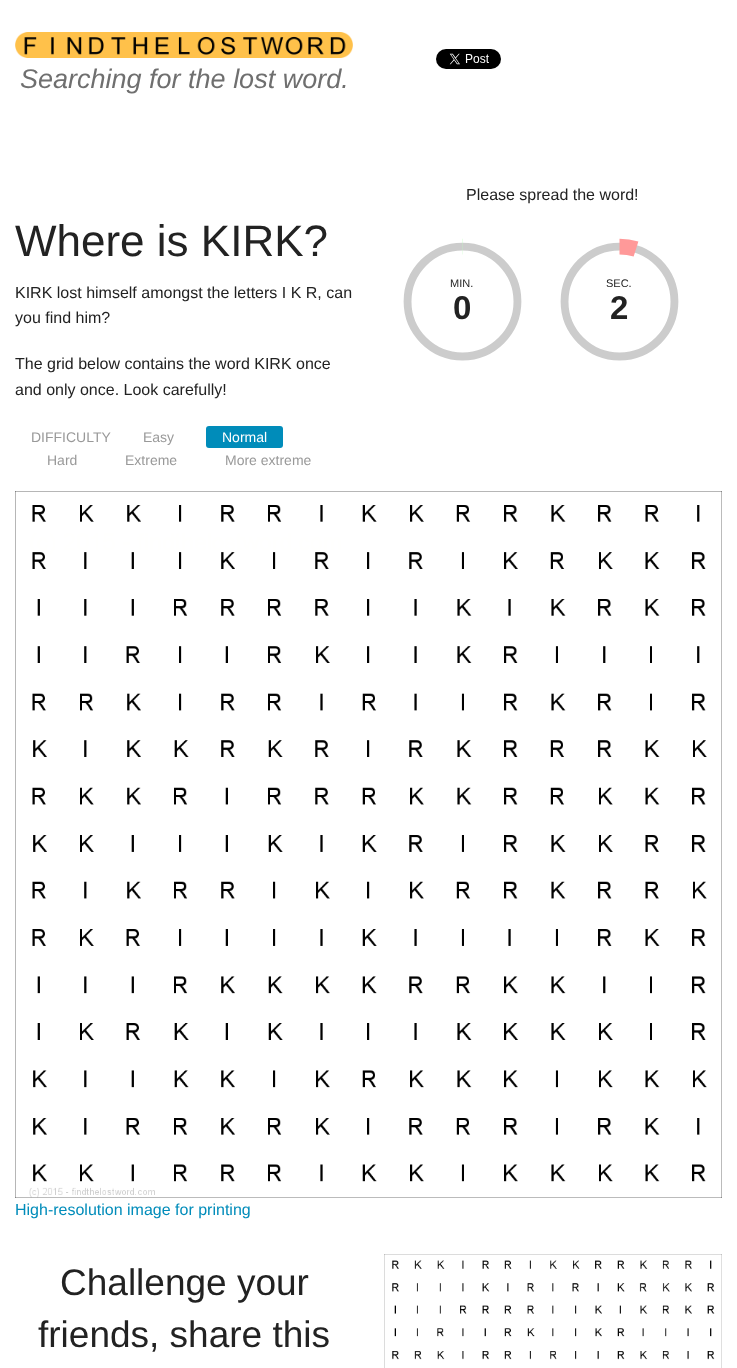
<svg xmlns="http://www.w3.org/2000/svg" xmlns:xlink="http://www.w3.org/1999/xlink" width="737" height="1368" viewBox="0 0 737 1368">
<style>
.cls-1{font:italic 27px Liberation Sans;fill:#6f6f6f}
.cls-2{font:16px Liberation Sans;fill:#222222}
.cls-3{font:44px Liberation Sans;fill:#222222}
.cls-4{font:14px Liberation Sans;fill:#999999}
.cls-5{font:14px Liberation Sans;fill:#ffffff}
.cls-6{font:11px Liberation Sans;fill:#222222}
.cls-7{font:bold 33px Liberation Sans;fill:#222222}
.cls-8{font:16px Liberation Sans;fill:#008cba}
.cls-9{font:37px Liberation Sans;fill:#222222}
</style>
<rect width="100%" height="100%" fill="#ffffff"/>
<image xlink:href="image0.png" x="15" y="32" width="338" height="26"/>
<image xlink:href="image1.png" x="436" y="49" width="65" height="20"/>
<rect fill="#008cba" x="206" y="426" width="77" height="22" rx="3"/>
<image xlink:href="image2.png" x="403" y="238" width="276" height="123"/>
<image xlink:href="image3.png" x="15" y="491" width="707" height="707"/>
<image xlink:href="image4.png" x="384" y="1254" width="338" height="114"/>
<text class="cls-1" x="20" y="88">Searching for the lost word.</text>
<text class="cls-2" x="466" y="200">Please spread the word!</text>
<text class="cls-3" x="15" y="256">Where is KIRK?</text>
<text class="cls-2"><tspan x="15" y="298">KIRK lost himself amongst the letters I K R, can</tspan><tspan x="15" y="323">you find him?</tspan></text>
<text class="cls-2"><tspan x="15" y="369">The grid below contains the word KIRK once</tspan><tspan x="15" y="395">and only once. Look carefully!</tspan></text>
<text class="cls-4" x="31" y="442">DIFFICULTY</text>
<text class="cls-4" x="143" y="442">Easy</text>
<text class="cls-5" x="222" y="442">Normal</text>
<text class="cls-4" x="47" y="465">Hard</text>
<text class="cls-4" x="125" y="465">Extreme</text>
<text class="cls-4" x="225" y="465">More extreme</text>
<text class="cls-6" x="450" y="287">MIN.</text>
<text class="cls-7" x="453" y="319">0</text>
<text class="cls-6" x="606" y="287">SEC.</text>
<text class="cls-7" x="610" y="319">2</text>
<text class="cls-8" x="15" y="1215">High-resolution image for printing</text>
<text class="cls-9" x="60" y="1295">Challenge your</text>
<text class="cls-9" x="38" y="1347">friends, share this</text>
</svg>
